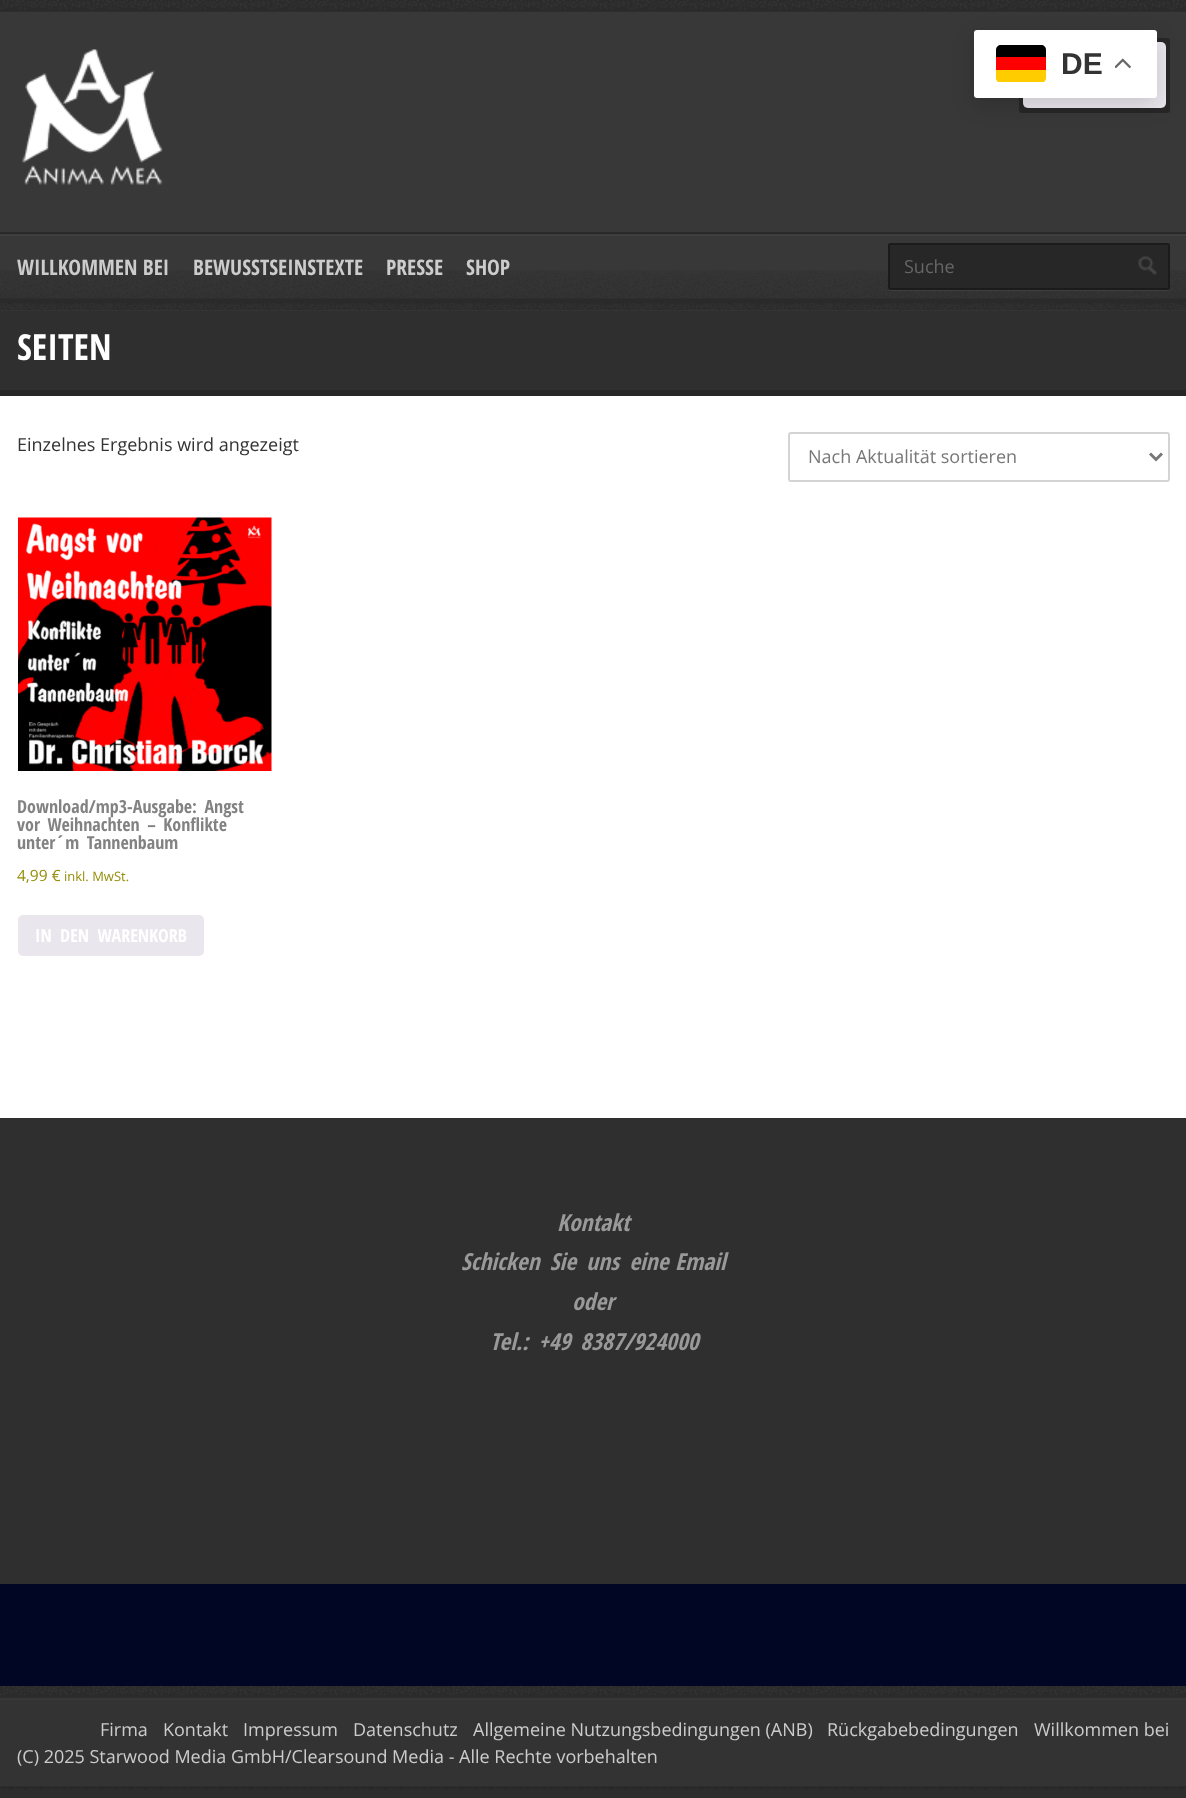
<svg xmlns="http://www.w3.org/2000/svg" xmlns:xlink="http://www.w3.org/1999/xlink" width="1186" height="1798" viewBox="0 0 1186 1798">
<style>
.cls-1{font:bold 30px Liberation Sans;fill:#333333}
.cls-2{font:bold 21.5px Open Sans Condensed;fill:#cccccc}
.cls-3{font:18px Open Sans;fill:#666666}
.cls-4{font:bold 36px Open Sans Condensed;fill:#ffffff}
.cls-5{font:18px Open Sans;fill:#333333}
.cls-6{font:18px Open Sans;fill:#777777}
.cls-7{font:bold 18px Open Sans Condensed;fill:#828282}
.cls-8{font:15.5px Open Sans;fill:#958e09}
.cls-9{font:13px Open Sans;fill:#958e09}
.cls-10{font:bold 18px Open Sans Condensed;fill:#ffffff}
.cls-11{font:italic bold 23.5px Open Sans Condensed;fill:#999999}
.cls-12{font:18px Open Sans;fill:#cccccc}
</style>
<defs>
<clipPath id="clip1"><rect x="996" y="45" width="50" height="38" rx="5"/></clipPath>
<clipPath id="clip2"><rect x="905" y="252" width="225" height="29"/></clipPath>
</defs>
<rect width="100%" height="100%" fill="#020625"/>
<rect fill="#383838" x="0" y="12" width="1186" height="299"/>
<image xlink:href="image2.png" x="0" y="0" width="1186" height="12"/>
<path fill="#3f3f3f" d="M1020 112C1020 113 1021 113 1022 113H1167C1169 113 1170 112 1170 110C1170 111 1169 112 1167 112H1022Z"/>
<rect fill="none" stroke="#272727" stroke-width="5" x="1021.5" y="40.5" width="146" height="70" rx="0.5"/>
<rect fill="#e9e6ed" x="1023" y="42" width="143" height="66" rx="5"/>
<rect fill="#000000" fill-opacity="0.15" filter="blur(11px)" x="974" y="38" width="183" height="67" rx="3"/>
<rect fill="#ffffff" x="974" y="30" width="183" height="68" rx="3"/>
<g clip-path="url(#clip1)">
<rect fill="#ffcc00" x="996" y="70" width="50" height="12"/>
</g>
<path fill="#000000" d="M1001 45H1041C1044 45 1046 47 1046 50V57H996V50C996 47 998 45 1001 45Z"/>
<rect fill="#ff0000" x="996" y="57" width="50" height="13"/>
<image xlink:href="image0.png" x="1115" y="58" width="16" height="11"/>
<image xlink:href="image1.png" x="0" y="270" width="1186" height="41"/>
<image xlink:href="image3.png" x="22" y="49" width="141" height="136"/>
<image xlink:href="image4.png" x="0" y="232" width="1186" height="4"/>
<path fill="#3f3f3f" d="M888 286V288C888 290 889 291 891 291H1167C1169 291 1170 290 1170 288V286C1170 288 1169 290 1167 290H891C889 290 888 288 888 286Z"/>
<rect fill="#272727" x="888" y="243" width="282" height="47" rx="3"/>
<image xlink:href="image5.png" x="1138" y="256" width="19" height="19"/>
<rect fill="none" stroke="#1b1b1b" stroke-width="2" x="889" y="244" width="280" height="45" rx="2"/>
<rect fill="#2f2f2f" x="0" y="311" width="1186" height="79"/>
<rect fill="#272727" x="0" y="390" width="1186" height="6"/>
<rect fill="#ffffff" x="0" y="396" width="1186" height="722"/>
<rect fill="none" stroke="#d4d4d4" stroke-width="2" x="789" y="433" width="380" height="48" rx="2"/>
<path fill="none" stroke="#777777" stroke-width="3" d="M1150 453.5L1156 459.5L1162 453.5"/>
<image xlink:href="image6.png" x="18" y="517" width="254" height="254"/>
<rect fill="#e9e6ed" x="18" y="915" width="186" height="41" rx="5"/>
<rect fill="#2f2f2f" x="0" y="1118" width="1186" height="466"/>
<image xlink:href="image7.png" x="0" y="1686" width="1186" height="14"/>
<rect fill="#333333" x="0" y="1700" width="1186" height="87"/>
<image xlink:href="image8.png" x="0" y="1786" width="1186" height="12"/>
<text class="cls-1" x="1061" y="74">DE</text>
<text class="cls-2" x="17" y="275">WILLKOMMEN BEI</text>
<text class="cls-2" x="193" y="275">BEWUSSTSEINSTEXTE</text>
<text class="cls-2" x="386" y="275">PRESSE</text>
<text class="cls-2" x="466" y="275">SHOP</text>
<g clip-path="url(#clip2)">
<text class="cls-3" x="904" y="273">Suche</text>
</g>
<text class="cls-4" x="17" y="360">SEITEN</text>
<text class="cls-5" x="17" y="451">Einzelnes Ergebnis wird angezeigt</text>
<text class="cls-6" x="808" y="463">Nach Aktualität sortieren</text>
<text class="cls-7"><tspan x="17" y="813" word-spacing="3">Download/mp3-Ausgabe: Angst</tspan><tspan x="17" y="831" word-spacing="3">vor Weihnachten – Konflikte</tspan><tspan x="17" y="849" word-spacing="3">unter´m Tannenbaum</tspan></text>
<text class="cls-8" x="17" y="881">4,99 €</text>
<text class="cls-9" x="64" y="881">inkl. MwSt.</text>
<text class="cls-10" x="35" y="942" word-spacing="4">IN DEN WARENKORB</text>
<text class="cls-11" x="557" y="1231">Kontakt</text>
<text class="cls-11" x="461" y="1270" word-spacing="4.5">Schicken Sie uns eine</text>
<text class="cls-11" x="675" y="1270">Email</text>
<text class="cls-11" x="572" y="1310">oder</text>
<text class="cls-11" x="490" y="1350" word-spacing="4">Tel.: +49 8387/924000</text>
<text class="cls-12" x="100" y="1736">Firma</text>
<text class="cls-12" x="163" y="1736">Kontakt</text>
<text class="cls-12" x="243" y="1736">Impressum</text>
<text class="cls-12" x="353" y="1736">Datenschutz</text>
<text class="cls-12" x="473" y="1736">Allgemeine Nutzungsbedingungen (ANB)</text>
<text class="cls-12" x="827" y="1736">Rückgabebedingungen</text>
<text class="cls-12" x="1034" y="1736">Willkommen bei</text>
<text class="cls-12" x="17" y="1763">(C) 2025 Starwood Media GmbH/Clearsound Media - Alle Rechte vorbehalten</text>
</svg>
